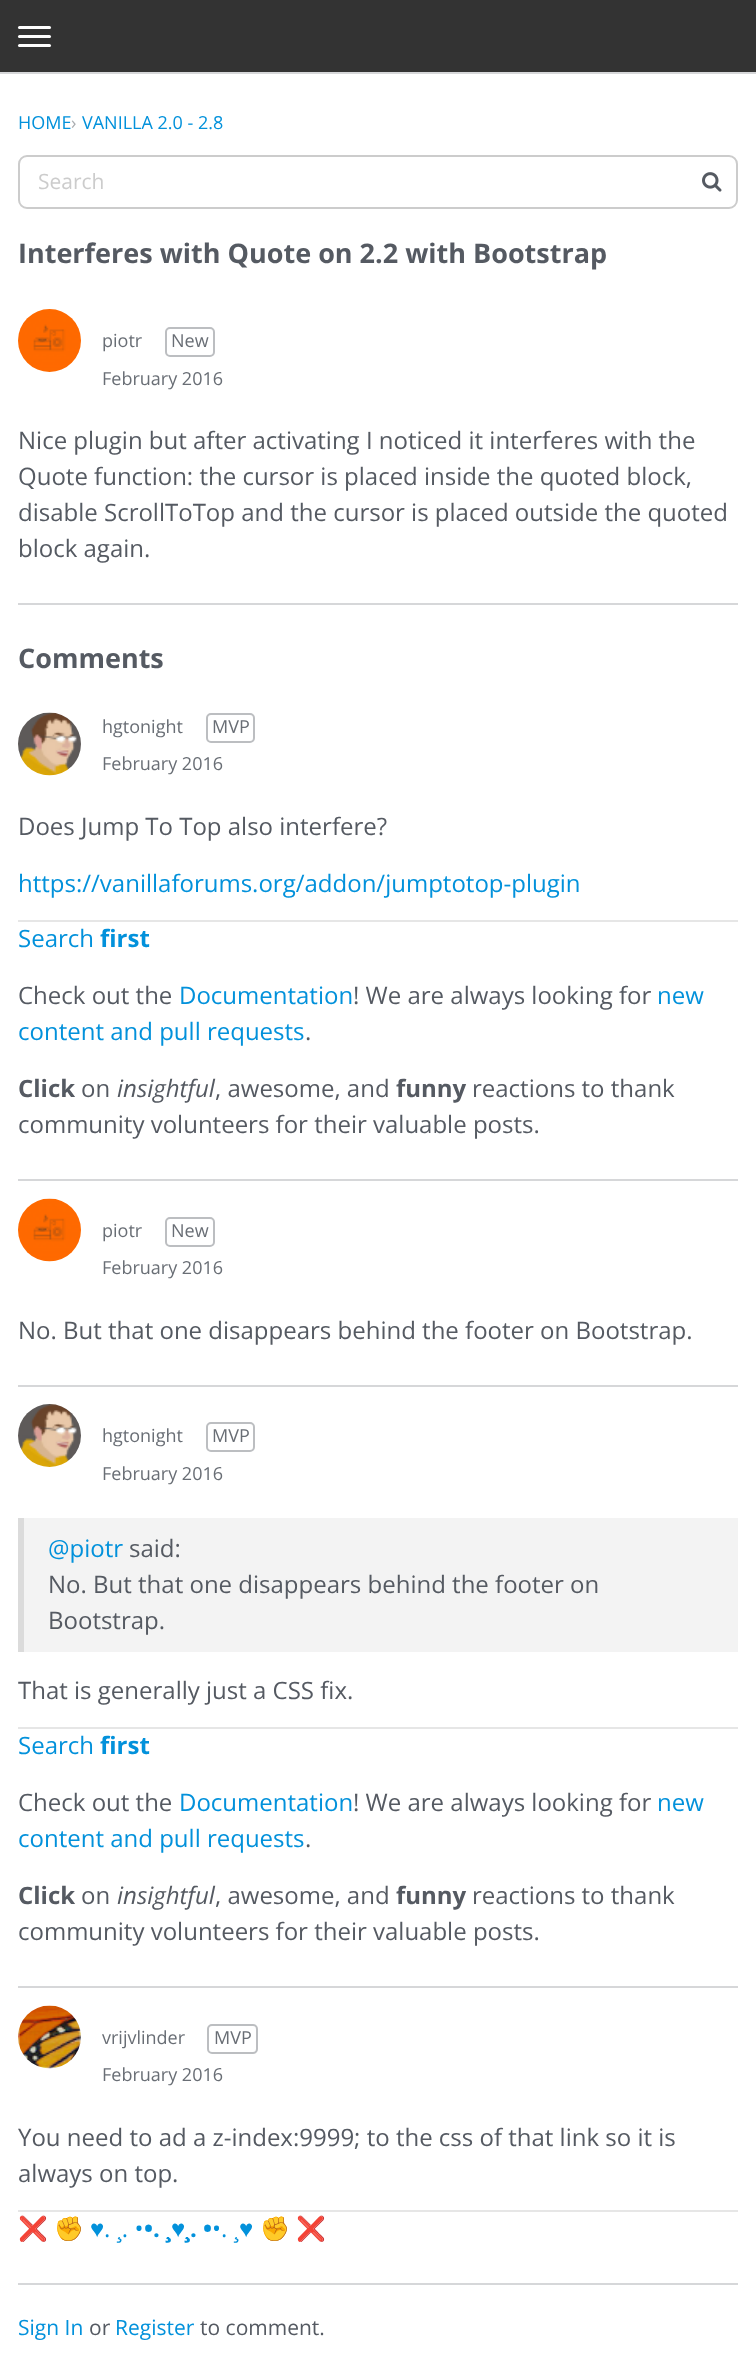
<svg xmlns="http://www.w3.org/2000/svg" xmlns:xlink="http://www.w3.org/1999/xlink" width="756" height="2365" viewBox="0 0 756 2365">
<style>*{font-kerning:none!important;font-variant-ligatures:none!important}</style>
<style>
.cls-1{font:18px Open Sans;fill:#0291db}
.cls-2{font:18px Open Sans;fill:#aaadb1}
.cls-3{font:21px Open Sans;fill:#cccccc}
.cls-4{font:bold 27px Open Sans;fill:#555a62}
.cls-5{font:18px Open Sans;fill:#696e75}
.cls-6{font:24px Open Sans;fill:#555a62}
.cls-7{font:24px Open Sans;fill:#0291db}
.cls-8{font:bold 24px Open Sans;fill:#0291db}
.cls-9{font:bold 24px Open Sans;fill:#555a62}
.cls-10{font:italic 24px Open Sans;fill:#555a62}
.cls-11{font:24px Noto Color Emoji;fill:#0291db}
.cls-12{font:24px Liberation Sans;fill:#0291db}
.cls-13{font:bold 24px Liberation Sans;fill:#0291db}
.cls-14{font:21px Open Sans;fill:#0291db}
.cls-15{font:21px Open Sans;fill:#555a62}
</style>
<rect width="100%" height="100%" fill="#ffffff"/>
<rect fill="#333333" x="0" y="0" width="756" height="72"/>
<rect fill="#d6d7d9" x="0" y="72" width="756" height="2"/>
<rect fill="#ffffff" x="18" y="35" width="33" height="3" rx="1.5"/>
<rect fill="#ffffff" x="18" y="26" width="33" height="3" rx="1.5"/>
<rect fill="#ffffff" x="18" y="44" width="33" height="3" rx="1.5"/>
<rect fill="none" stroke="#cccccc" stroke-width="2" x="19" y="156" width="718" height="52" rx="8"/>
<image xlink:href="image0.png" x="702" y="172" width="20" height="20"/>
<rect fill="#d6d7d9" x="18" y="603" width="720" height="2"/>
<image xlink:href="image1.png" x="18" y="309" width="63" height="63"/>
<rect fill="none" stroke="#bcbec1" stroke-width="2" x="166" y="328" width="48" height="28" rx="4"/>
<image xlink:href="image2.png" x="18" y="712" width="63" height="64"/>
<rect fill="none" stroke="#bcbec1" stroke-width="2" x="207" y="714" width="47" height="28" rx="4"/>
<rect fill="#e6e6e6" x="18" y="920" width="720" height="2"/>
<rect fill="#d6d7d9" x="18" y="1179" width="720" height="2"/>
<image xlink:href="image3.png" x="18" y="1198" width="63" height="64"/>
<rect fill="none" stroke="#bcbec1" stroke-width="2" x="166" y="1218" width="48" height="28" rx="4"/>
<rect fill="#d6d7d9" x="18" y="1385" width="720" height="2"/>
<image xlink:href="image4.png" x="18" y="1404" width="63" height="63"/>
<rect fill="none" stroke="#bcbec1" stroke-width="2" x="207" y="1423" width="47" height="28" rx="4"/>
<rect fill="#f3f3f3" x="24" y="1518" width="714" height="134"/>
<rect fill="#dbdbdb" x="18" y="1518" width="6" height="134"/>
<rect fill="#e6e6e6" x="18" y="1727" width="720" height="2"/>
<rect fill="#d6d7d9" x="18" y="1986" width="720" height="2"/>
<rect fill="#d6d7d9" x="18" y="2283" width="720" height="2"/>
<image xlink:href="image5.png" x="18" y="2005" width="63" height="64"/>
<rect fill="none" stroke="#bcbec1" stroke-width="2" x="208" y="2025" width="49" height="28" rx="4"/>
<rect fill="#e6e6e6" x="18" y="2210" width="720" height="2"/>
<text class="cls-1" x="18" y="129">HOME</text>
<text class="cls-2" x="71" y="129">›</text>
<text class="cls-1" x="82" y="129">VANILLA 2.0 - 2.8</text>
<text class="cls-3" x="38" y="189">Search</text>
<text class="cls-4" x="18" y="263">Interferes with Quote on 2.2 with Bootstrap</text>
<text class="cls-5" x="102" y="347">piotr</text>
<text class="cls-5" x="171" y="347">New</text>
<text class="cls-5" x="102" y="385">February 2016</text>
<text class="cls-6"><tspan x="18" y="449">Nice plugin but after activating I noticed it interferes with the</tspan><tspan x="18" y="485">Quote function: the cursor is placed inside the quoted block,</tspan><tspan x="18" y="521">disable ScrollToTop and the cursor is placed outside the quoted</tspan><tspan x="18" y="557">block again.</tspan></text>
<text class="cls-4" x="18" y="668">Comments</text>
<text class="cls-5" x="102" y="733">hgtonight</text>
<text class="cls-5" x="212" y="733">MVP</text>
<text class="cls-5" x="102" y="770">February 2016</text>
<text class="cls-6" x="18" y="835">Does Jump To Top also interfere?</text>
<text class="cls-7" x="18" y="892">https://vanillaforums.org/addon/jumptotop-plugin</text>
<text class="cls-7" x="18" y="947">Search</text>
<text class="cls-8" x="100" y="947">first</text>
<text class="cls-6" x="18" y="1004">Check out the</text>
<text class="cls-7" x="179" y="1004">Documentation</text>
<text class="cls-6" x="353" y="1004">! We are always looking for</text>
<text class="cls-7" x="657" y="1004">new</text>
<text class="cls-7" x="18" y="1040">content and pull requests</text>
<text class="cls-6" x="305" y="1040">.</text>
<text class="cls-9" x="18" y="1097">Click</text>
<text class="cls-6" x="81" y="1097">on</text>
<text class="cls-10" x="117" y="1097">insightful</text>
<text class="cls-6" x="215" y="1097">, awesome, and</text>
<text class="cls-9" x="396" y="1097">funny</text>
<text class="cls-6" x="472" y="1097">reactions to thank</text>
<text class="cls-6" x="18" y="1133">community volunteers for their valuable posts.</text>
<text class="cls-5" x="102" y="1237">piotr</text>
<text class="cls-5" x="171" y="1237">New</text>
<text class="cls-5" x="102" y="1274">February 2016</text>
<text class="cls-6" x="18" y="1339">No. But that one disappears behind the footer on Bootstrap.</text>
<text class="cls-5" x="102" y="1442">hgtonight</text>
<text class="cls-5" x="212" y="1442">MVP</text>
<text class="cls-5" x="102" y="1480">February 2016</text>
<text class="cls-7" x="48" y="1557">@piotr</text>
<text class="cls-6" x="129" y="1557">said:</text>
<text class="cls-6"><tspan x="48" y="1593">No. But that one disappears behind the footer on</tspan><tspan x="48" y="1629">Bootstrap.</tspan></text>
<text class="cls-6" x="18" y="1699">That is generally just a CSS fix.</text>
<text class="cls-7" x="18" y="1754">Search</text>
<text class="cls-8" x="100" y="1754">first</text>
<text class="cls-6" x="18" y="1811">Check out the</text>
<text class="cls-7" x="179" y="1811">Documentation</text>
<text class="cls-6" x="353" y="1811">! We are always looking for</text>
<text class="cls-7" x="657" y="1811">new</text>
<text class="cls-7" x="18" y="1847">content and pull requests</text>
<text class="cls-6" x="305" y="1847">.</text>
<text class="cls-9" x="18" y="1904">Click</text>
<text class="cls-6" x="81" y="1904">on</text>
<text class="cls-10" x="117" y="1904">insightful</text>
<text class="cls-6" x="215" y="1904">, awesome, and</text>
<text class="cls-9" x="396" y="1904">funny</text>
<text class="cls-6" x="472" y="1904">reactions to thank</text>
<text class="cls-6" x="18" y="1940">community volunteers for their valuable posts.</text>
<text class="cls-5" x="102" y="2044">vrijvlinder</text>
<text class="cls-5" x="214" y="2044">MVP</text>
<text class="cls-5" x="102" y="2081">February 2016</text>
<text class="cls-6"><tspan x="18" y="2146">You need to ad a z-index:9999; to the css of that link so it is</tspan><tspan x="18" y="2182">always on top.</tspan></text>
<text class="cls-11" x="18" y="2237">❌</text>
<text class="cls-11" x="54" y="2237">✊</text>
<text class="cls-12" x="90" y="2237">♥</text>
<text class="cls-7" x="104" y="2237">. ¸. •</text>
<text class="cls-8" x="144" y="2237">•. ¸</text>
<text class="cls-13" x="171" y="2237">♥</text>
<text class="cls-8" x="185" y="2237">¸. •</text>
<text class="cls-7" x="212" y="2237">•. ¸</text>
<text class="cls-12" x="239" y="2237">♥</text>
<text class="cls-11" x="260" y="2237">✊</text>
<text class="cls-11" x="296" y="2237">❌</text>
<text class="cls-14" x="18" y="2335">Sign In</text>
<text class="cls-15" x="89" y="2335">or</text>
<text class="cls-14" x="115" y="2335">Register</text>
<text class="cls-15" x="200" y="2335">to comment.</text>
</svg>
